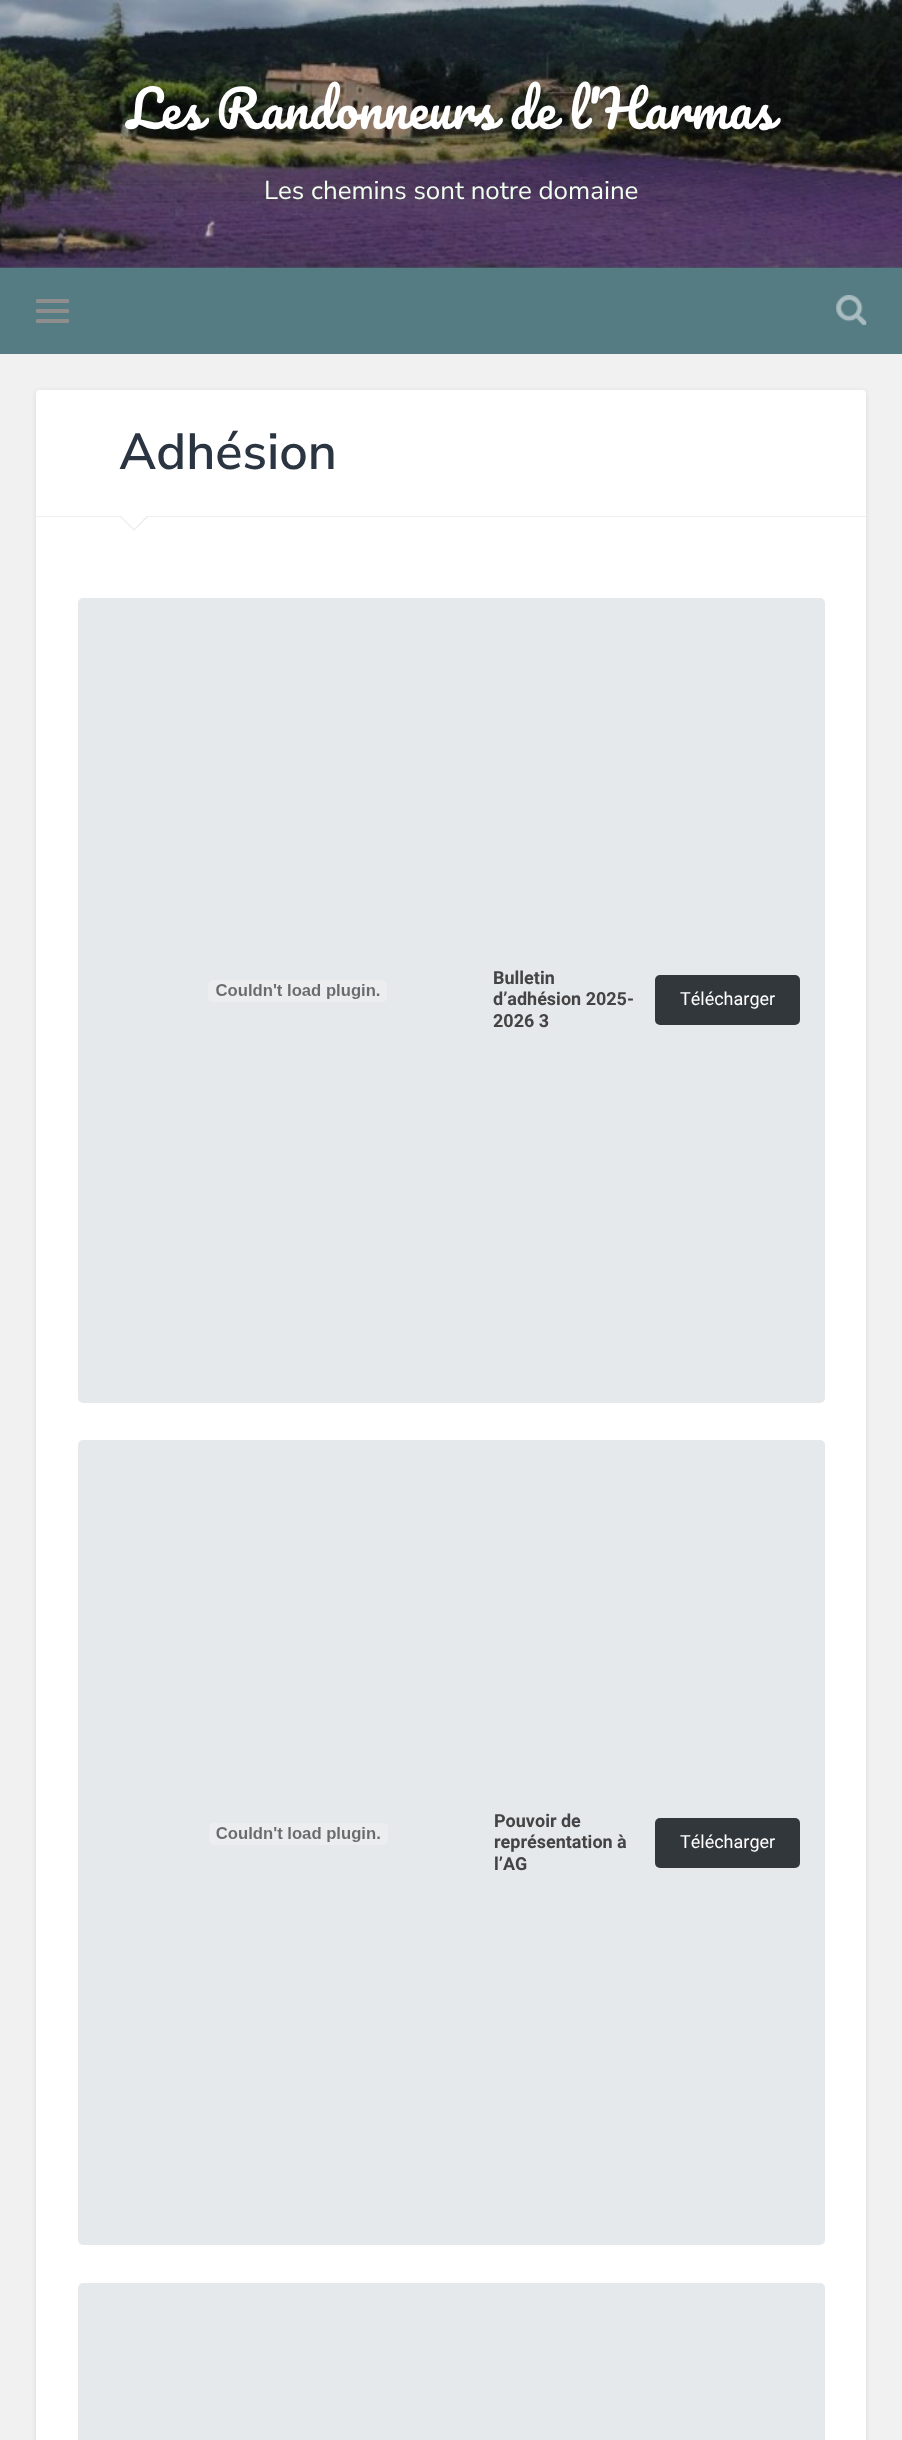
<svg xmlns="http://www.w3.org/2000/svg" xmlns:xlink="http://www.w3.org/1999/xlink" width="902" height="2440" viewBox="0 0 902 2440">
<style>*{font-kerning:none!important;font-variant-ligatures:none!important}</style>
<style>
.cls-1{font:50.6px Pacifico;fill:#ffffff}
.cls-2{font:25.9px Nunito Sans;fill:#f0fff0}
.cls-3{font:600 50.6px Nunito Sans;fill:#2b3542}
.cls-4{font:bold 18px Roboto;fill:#444444}
.cls-5{font:18px Roboto;fill:#ffffff}
</style>
<rect width="100%" height="100%" fill="#f1f1f1"/>
<rect fill="#47646a" x="0" y="267" width="902" height="1"/>
<image xlink:href="image0.png" x="0" y="0" width="902" height="268"/>
<rect fill="#557b83" x="0" y="268" width="902" height="86"/>
<rect fill="#8e8e8e" x="36" y="299" width="33" height="4" rx="1"/>
<rect fill="#8e8e8e" x="36" y="309" width="33" height="4" rx="1"/>
<rect fill="#8e8e8e" x="36" y="319" width="33" height="4" rx="1"/>
<image xlink:href="image1.png" x="836" y="295" width="31" height="30"/>
<rect fill="#000000" fill-opacity="0.1" filter="blur(2.5px)" x="36" y="391" width="830" height="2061" rx="4"/>
<rect fill="#ffffff" x="36" y="390" width="830" height="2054" rx="4"/>
<rect fill="#eeeeee" x="36" y="516" width="830" height="1"/>
<path fill="#eeeeee" d="M119 516H149L134 531Z"/>
<path fill="#ffffff" d="M120 515H147.5L134 529Z"/>
<rect fill="#e6e9ec" x="78" y="598" width="747" height="805" rx="5"/>
<image xlink:href="image2.png" x="208" y="980" width="179" height="22"/>
<rect fill="#32373c" x="655" y="975" width="145" height="50" rx="5"/>
<rect fill="#e6e9ec" x="78" y="1440" width="747" height="805" rx="5"/>
<image xlink:href="image3.png" x="209" y="1823" width="179" height="22"/>
<rect fill="#32373c" x="655" y="1818" width="145" height="50" rx="5"/>
<rect fill="#e6e9ec" x="78" y="2283" width="747" height="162" rx="5"/>
<text class="cls-1" x="127" y="129">Les Randonneurs de l'Harmas</text>
<text class="cls-2" x="264" y="199">Les chemins sont notre domaine</text>
<text class="cls-3" x="119" y="469">Adhésion</text>
<text class="cls-4"><tspan x="493" y="984">Bulletin</tspan><tspan x="493" y="1005">d’adhésion 2025-</tspan><tspan x="493" y="1027">2026 3</tspan></text>
<text class="cls-5" x="680" y="1005">Télécharger</text>
<text class="cls-4"><tspan x="494" y="1827">Pouvoir de</tspan><tspan x="494" y="1848">représentation à</tspan><tspan x="494" y="1870">l’AG</tspan></text>
<text class="cls-5" x="680" y="1848">Télécharger</text>
</svg>
